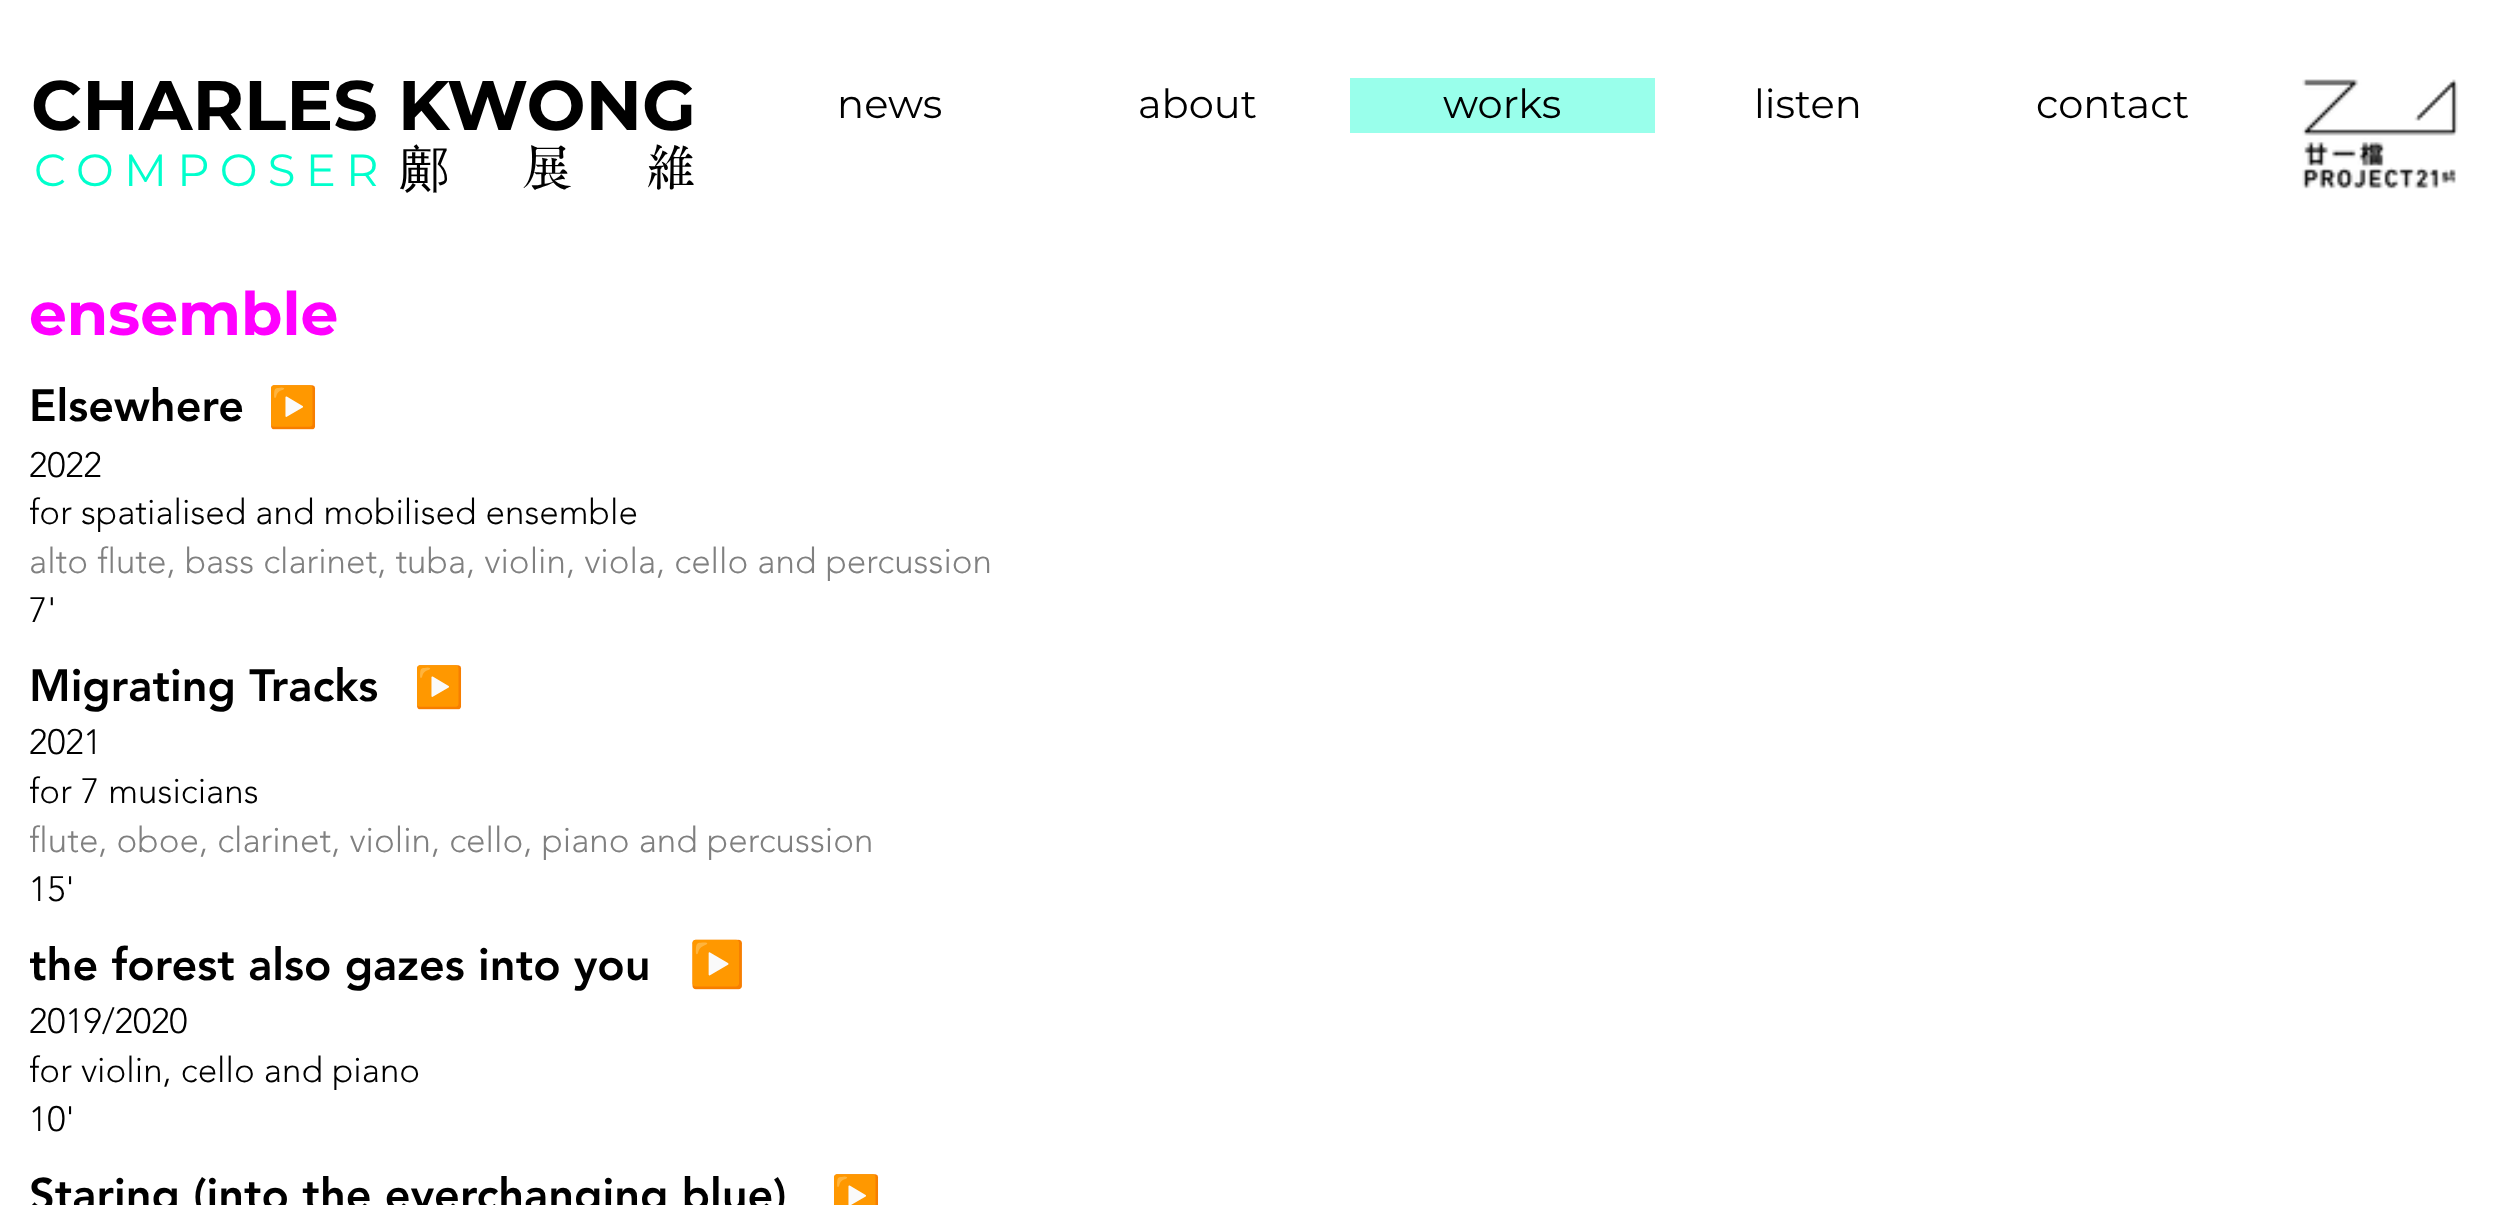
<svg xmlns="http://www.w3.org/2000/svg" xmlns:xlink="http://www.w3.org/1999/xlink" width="2507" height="1205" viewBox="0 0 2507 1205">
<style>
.cls-1{font:bold 70px Montserrat;fill:#000000}
.cls-2{font:45px Montserrat;letter-spacing:10.25px;fill:#00ffcc}
.cls-3{font:500 50px WenQuanYi Zen Hei;letter-spacing:74px;fill:#000000}
.cls-4{font:500 50px 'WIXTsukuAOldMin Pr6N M';letter-spacing:74px;fill:#000000}
.cls-5{font:500 50px 'WIXTsukuAOldMin Pr6N M';fill:#000000}
.cls-6{font:40px Montserrat;fill:#000000}
.cls-7{font:bold 60px Montserrat;fill:#ff00ff}
.cls-8{font:900 45px 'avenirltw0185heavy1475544';fill:#000000}
.cls-9{font:40px Noto Color Emoji;fill:#ff0000}
.cls-10{font:300 35px 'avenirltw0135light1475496';fill:#000000}
.cls-11{font:300 35px 'avenirltw0135light1475496';fill:#808080}
.cls-12{font:45px Noto Color Emoji;fill:#ff0000}
</style>
<defs>
<clipPath id="clip1"><rect x="30" y="375" width="2250" height="260"/></clipPath>
<clipPath id="clip2"><rect x="30" y="655" width="2250" height="260"/></clipPath>
<clipPath id="clip3"><rect x="30" y="935" width="2250" height="210"/></clipPath>
</defs>
<rect width="100%" height="100%" fill="#ffffff"/>
<rect fill="#99ffeb" x="1350" y="78" width="305" height="55"/>
<image xlink:href="image0.png" x="2302" y="79" width="156" height="110"/>
<text class="cls-1" x="31" y="130">CHARLES KWONG</text>
<text class="cls-2" x="34" y="186">COMPOSER</text>
<text class="cls-3" x="399" y="186">鄺</text>
<text class="cls-4" x="523" y="186">展</text>
<text class="cls-5" x="646" y="186">維</text>
<text class="cls-6" x="837" y="118">news</text>
<text class="cls-6" x="1138" y="118">about</text>
<text class="cls-6" x="1443" y="118">works</text>
<text class="cls-6" x="1754" y="118">listen</text>
<text class="cls-6" x="2036" y="118">contact</text>
<text class="cls-7" x="29" y="335">ensemble</text>
<text class="cls-8" x="29" y="421">Elsewhere</text>
<text class="cls-9" x="268" y="421">▶️</text>
<text class="cls-10" x="29" y="477">2022</text>
<g clip-path="url(#clip1)">
<text class="cls-10" x="29" y="524">for spatialised and mobilised ensemble</text>
</g>
<text class="cls-11" x="29" y="573">alto flute, bass clarinet, tuba, violin, viola, cello and percussion</text>
<text class="cls-10" x="29" y="622">7'</text>
<text class="cls-8" x="29" y="701">Migrating Tracks</text>
<text class="cls-9" x="414" y="701">▶️</text>
<text class="cls-10" x="29" y="754">2021</text>
<g clip-path="url(#clip2)">
<text class="cls-10" x="29" y="803">for 7 musicians</text>
<text class="cls-11" x="29" y="852">flute, oboe, clarinet, violin, cello, piano and percussion</text>
</g>
<text class="cls-10" x="29" y="901">15'</text>
<g clip-path="url(#clip3)">
<text class="cls-8" x="29" y="980">the forest also gazes into you</text>
</g>
<text class="cls-12" x="689" y="980">▶️</text>
<text class="cls-10" x="29" y="1033">2019/2020</text>
<g clip-path="url(#clip3)">
<text class="cls-10" x="29" y="1082">for violin, cello and piano</text>
</g>
<text class="cls-10" x="29" y="1131">10'</text>
<text class="cls-8" x="29" y="1210">Staring (into the everchanging blue)</text>
<text class="cls-9" x="831" y="1210">▶️</text>
</svg>
